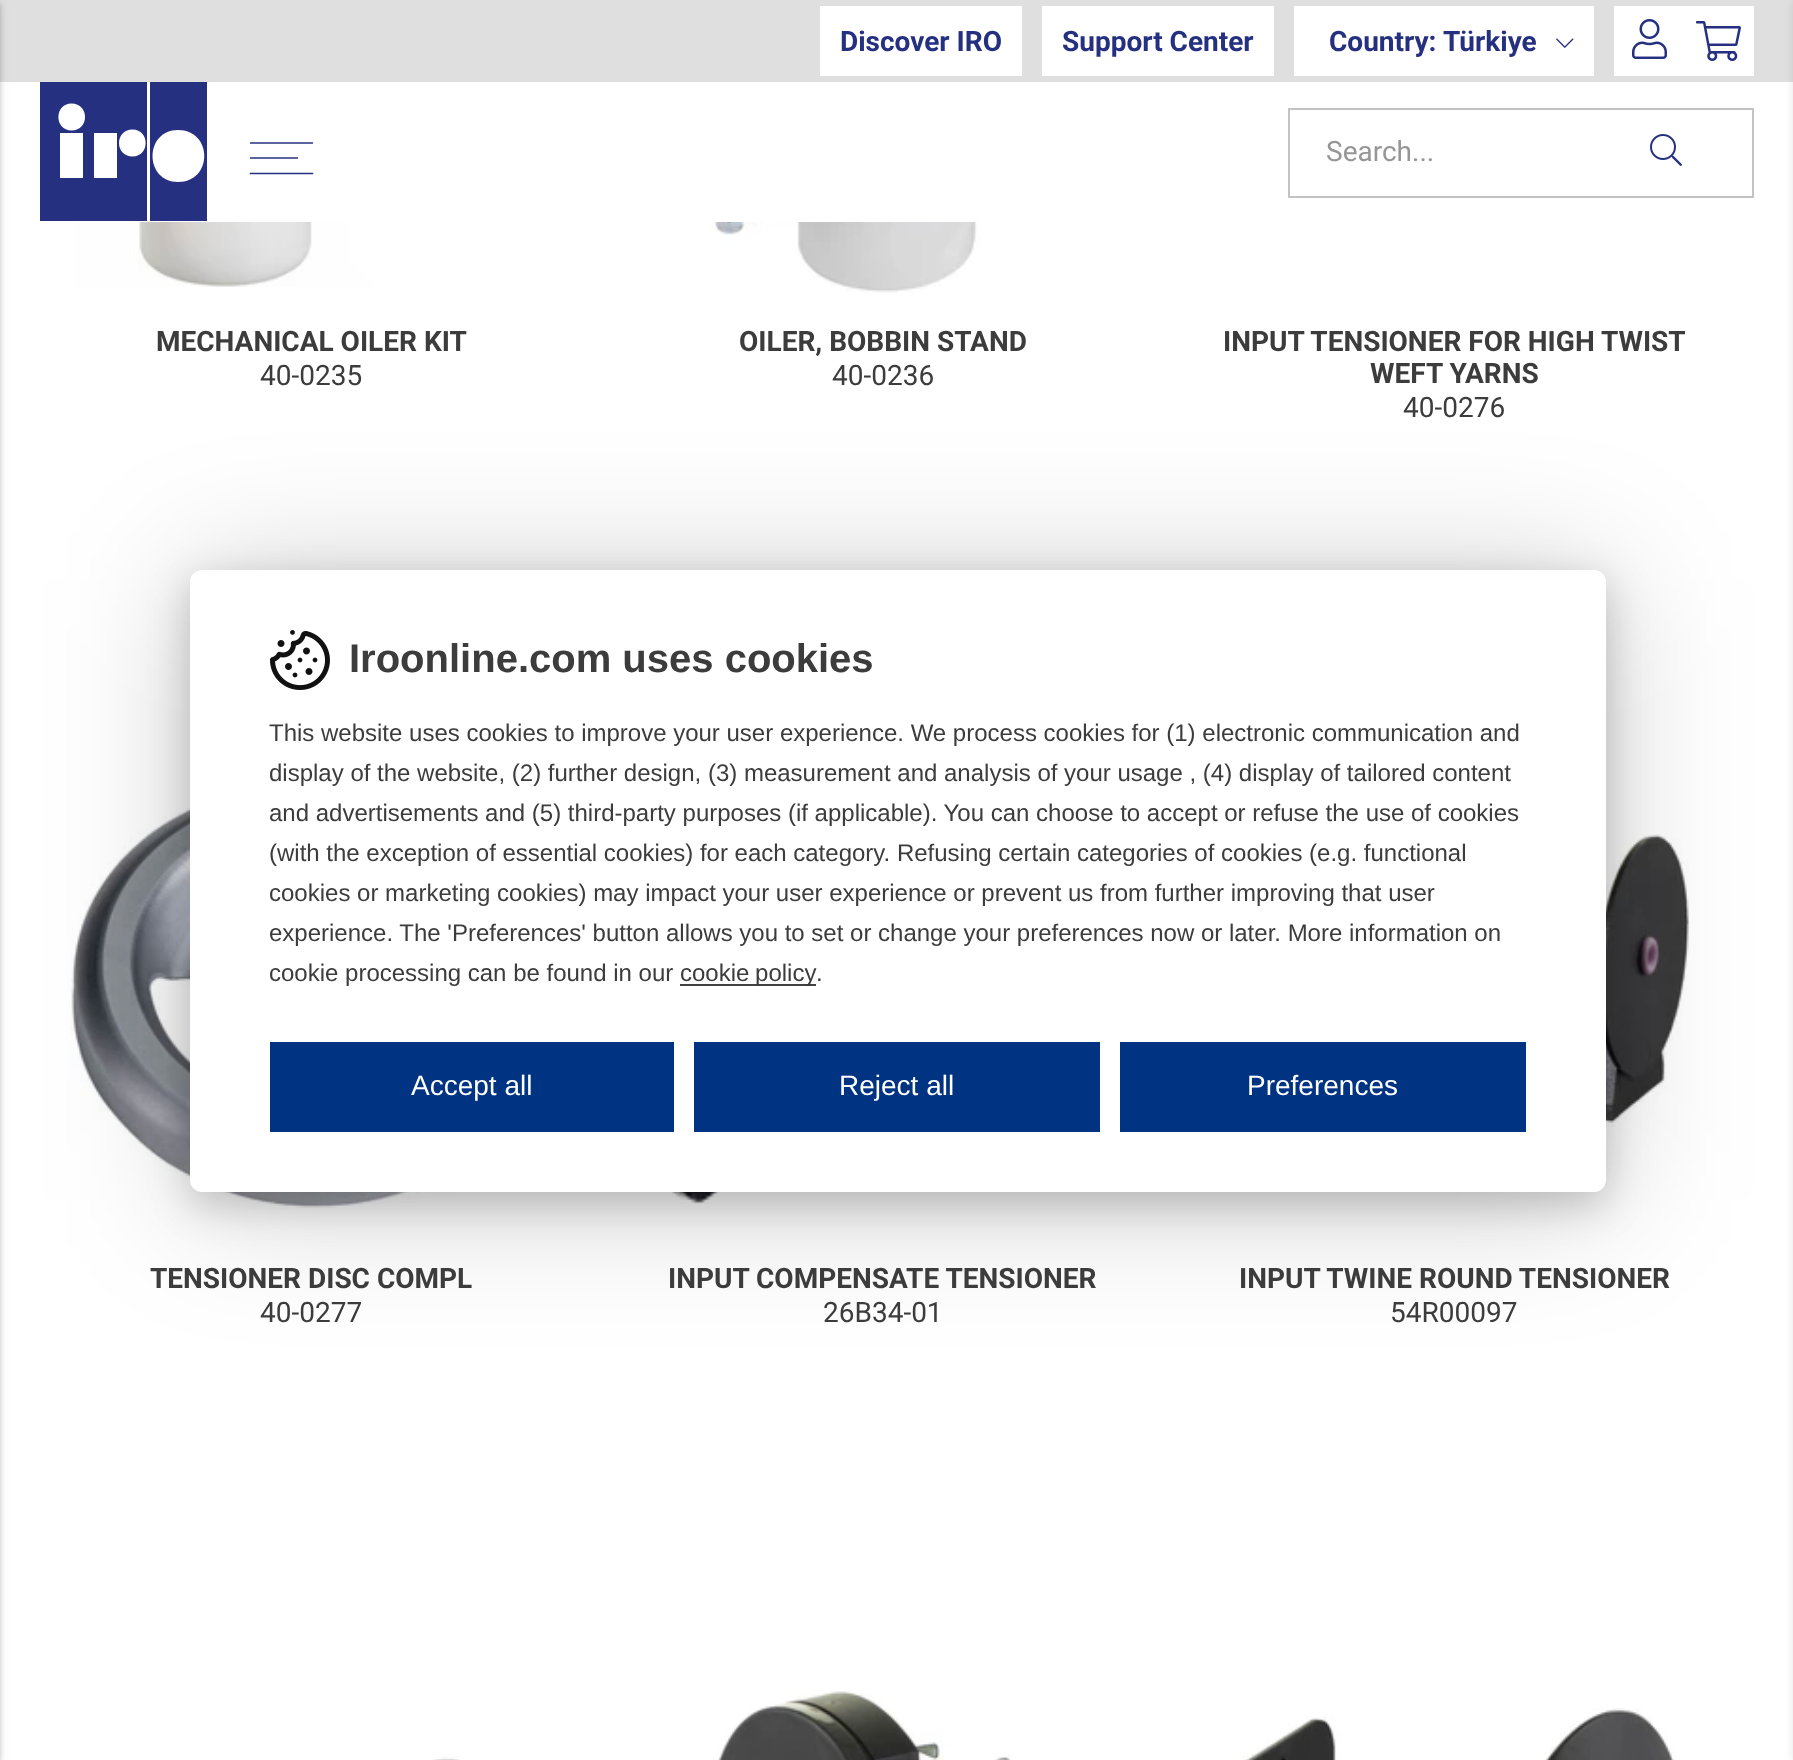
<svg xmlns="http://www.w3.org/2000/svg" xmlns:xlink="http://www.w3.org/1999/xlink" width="1793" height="1760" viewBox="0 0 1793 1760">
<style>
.cls-1{font:bold 28px Roboto;fill:#253081}
.cls-2{font:28px Roboto;fill:#969696}
.cls-3{font:bold 28px Roboto;fill:#3c3c3c}
.cls-4{font:28px Roboto;fill:#3c3c3c}
.cls-5{font:bold 40px Liberation Sans;fill:#3c3c3c}
.cls-6{font:24px Liberation Sans;fill:#3c3c3c}
.cls-7{font:28px Liberation Sans;fill:#ffffff}
</style>
<rect width="100%" height="100%" fill="#ffffff"/>
<rect fill="#dfdfdf" x="0" y="0" width="1793" height="82"/>
<rect fill="#ffffff" x="820" y="6" width="202" height="70"/>
<rect fill="#ffffff" x="1042" y="6" width="232" height="70"/>
<rect fill="#ffffff" x="1294" y="6" width="300" height="70"/>
<image xlink:href="image0.png" x="1556" y="38" width="18" height="10"/>
<rect fill="#ffffff" x="1614" y="6" width="140" height="70"/>
<image xlink:href="image1.png" x="1632" y="19" width="35" height="40"/>
<image xlink:href="image2.png" x="1696" y="21" width="45" height="40"/>
<rect fill="#000000" fill-opacity="0.12" filter="blur(5px)" x="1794" y="2" width="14" height="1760"/>
<rect fill="#000000" fill-opacity="0.12" filter="blur(5px)" x="-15" y="2" width="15" height="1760"/>
<rect fill="#000000" fill-opacity="0.14" filter="blur(2px)" x="-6" y="4" width="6" height="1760"/>
<rect fill="#5c64a1" x="250" y="142" width="63" height="2"/>
<rect fill="#5c64a1" x="250" y="157" width="48" height="2"/>
<path fill="none" stroke="#253081" stroke-width="1.5" stroke-linecap="square" d="M250.5 173.5H312.5"/>
<rect fill="#253081" x="40" y="82" width="107" height="139"/>
<rect fill="#253081" x="150" y="82" width="57" height="139"/>
<path fill="#ffffff" d="M71.5 130.5C54 130.5 54 103.5 71.5 103.5C89.5 103.5 89.5 130.5 71.5 130.5Z"/>
<rect fill="#ffffff" x="60" y="133" width="23" height="45"/>
<rect fill="#ffffff" x="94" y="133" width="23" height="45"/>
<path fill="#ffffff" d="M132.5 156.5C114.5 156.5 114.5 129.5 132.5 129.5C150 129.5 150 156.5 132.5 156.5Z"/>
<path fill="#ffffff" d="M178 182C144 182 144 130 178 130C213 130 213 182 178 182Z"/>
<rect fill="none" stroke="#c3c3c3" stroke-width="2" x="1289" y="109" width="464" height="88"/>
<image xlink:href="image3.png" x="1650" y="134" width="32" height="32"/>
<image xlink:href="image4.png" x="75" y="222" width="440" height="65"/>
<image xlink:href="image5.png" x="680" y="222" width="390" height="71"/>
<image xlink:href="image6.png" x="70" y="781" width="482" height="428"/>
<image xlink:href="image7.png" x="672" y="1192" width="46" height="12"/>
<image xlink:href="image8.png" x="1606" y="834" width="83" height="320"/>
<image xlink:href="image9.png" x="432" y="1756" width="28" height="4"/>
<image xlink:href="image10.png" x="718" y="1691" width="293" height="69"/>
<image xlink:href="image11.png" x="1242" y="1708" width="432" height="52"/>
<rect fill="#000000" fill-opacity="0.2" filter="blur(20px)" x="190" y="582" width="1416" height="622" rx="12"/>
<rect fill="#000000" fill-opacity="0.2" filter="blur(70px)" x="190" y="578" width="1416" height="622" rx="12"/>
<rect fill="#ffffff" x="190" y="570" width="1416" height="622" rx="12"/>
<image xlink:href="image12.png" x="270" y="630" width="60" height="60"/>
<rect fill="#414141" x="680" y="984" width="136" height="2"/>
<rect fill="#003382" x="270" y="1042" width="404" height="90"/>
<rect fill="#003382" x="694" y="1042" width="406" height="90"/>
<rect fill="#003382" x="1120" y="1042" width="406" height="90"/>
<text class="cls-1" x="840" y="51">Discover IRO</text>
<text class="cls-1" x="1062" y="51">Support Center</text>
<text class="cls-1" x="1329" y="51">Country:</text>
<text class="cls-1" x="1443" y="51">Türkiye</text>
<text class="cls-2" x="1326" y="161">Search...</text>
<text class="cls-3" x="156" y="351">MECHANICAL OILER KIT</text>
<text class="cls-4" x="260" y="385">40-0235</text>
<text class="cls-3" x="739" y="351">OILER, BOBBIN STAND</text>
<text class="cls-4" x="832" y="385">40-0236</text>
<text class="cls-3" x="1223" y="351">INPUT TENSIONER FOR HIGH TWIST</text>
<text class="cls-3" x="1370" y="383">WEFT YARNS</text>
<text class="cls-4" x="1403" y="417">40-0276</text>
<text class="cls-3" x="150" y="1288">TENSIONER DISC COMPL</text>
<text class="cls-4" x="260" y="1322">40-0277</text>
<text class="cls-3" x="668" y="1288">INPUT COMPENSATE TENSIONER</text>
<text class="cls-4" x="823" y="1322">26B34-01</text>
<text class="cls-3" x="1239" y="1288">INPUT TWINE ROUND TENSIONER</text>
<text class="cls-4" x="1390" y="1322">54R00097</text>
<text class="cls-5" x="349" y="672">Iroonline.com uses cookies</text>
<text class="cls-6"><tspan x="269" y="741">This website uses cookies to improve your user experience. We process cookies for (1) electronic communication and</tspan><tspan x="269" y="781">display of the website, (2) further design, (3) measurement and analysis of your usage , (4) display of tailored content</tspan><tspan x="269" y="821">and advertisements and (5) third-party purposes (if applicable). You can choose to accept or refuse the use of cookies</tspan><tspan x="269" y="861">(with the exception of essential cookies) for each category. Refusing certain categories of cookies (e.g. functional</tspan><tspan x="269" y="901">cookies or marketing cookies) may impact your user experience or prevent us from further improving that user</tspan><tspan x="269" y="941">experience. The 'Preferences' button allows you to set or change your preferences now or later. More information on</tspan><tspan x="269" y="981">cookie processing can be found in our</tspan></text>
<text class="cls-6" x="680" y="981" word-spacing="-1">cookie policy</text>
<text class="cls-6" x="816" y="981">.</text>
<text class="cls-7" x="411" y="1095">Accept all</text>
<text class="cls-7" x="839" y="1095">Reject all</text>
<text class="cls-7" x="1247" y="1095">Preferences</text>
</svg>
